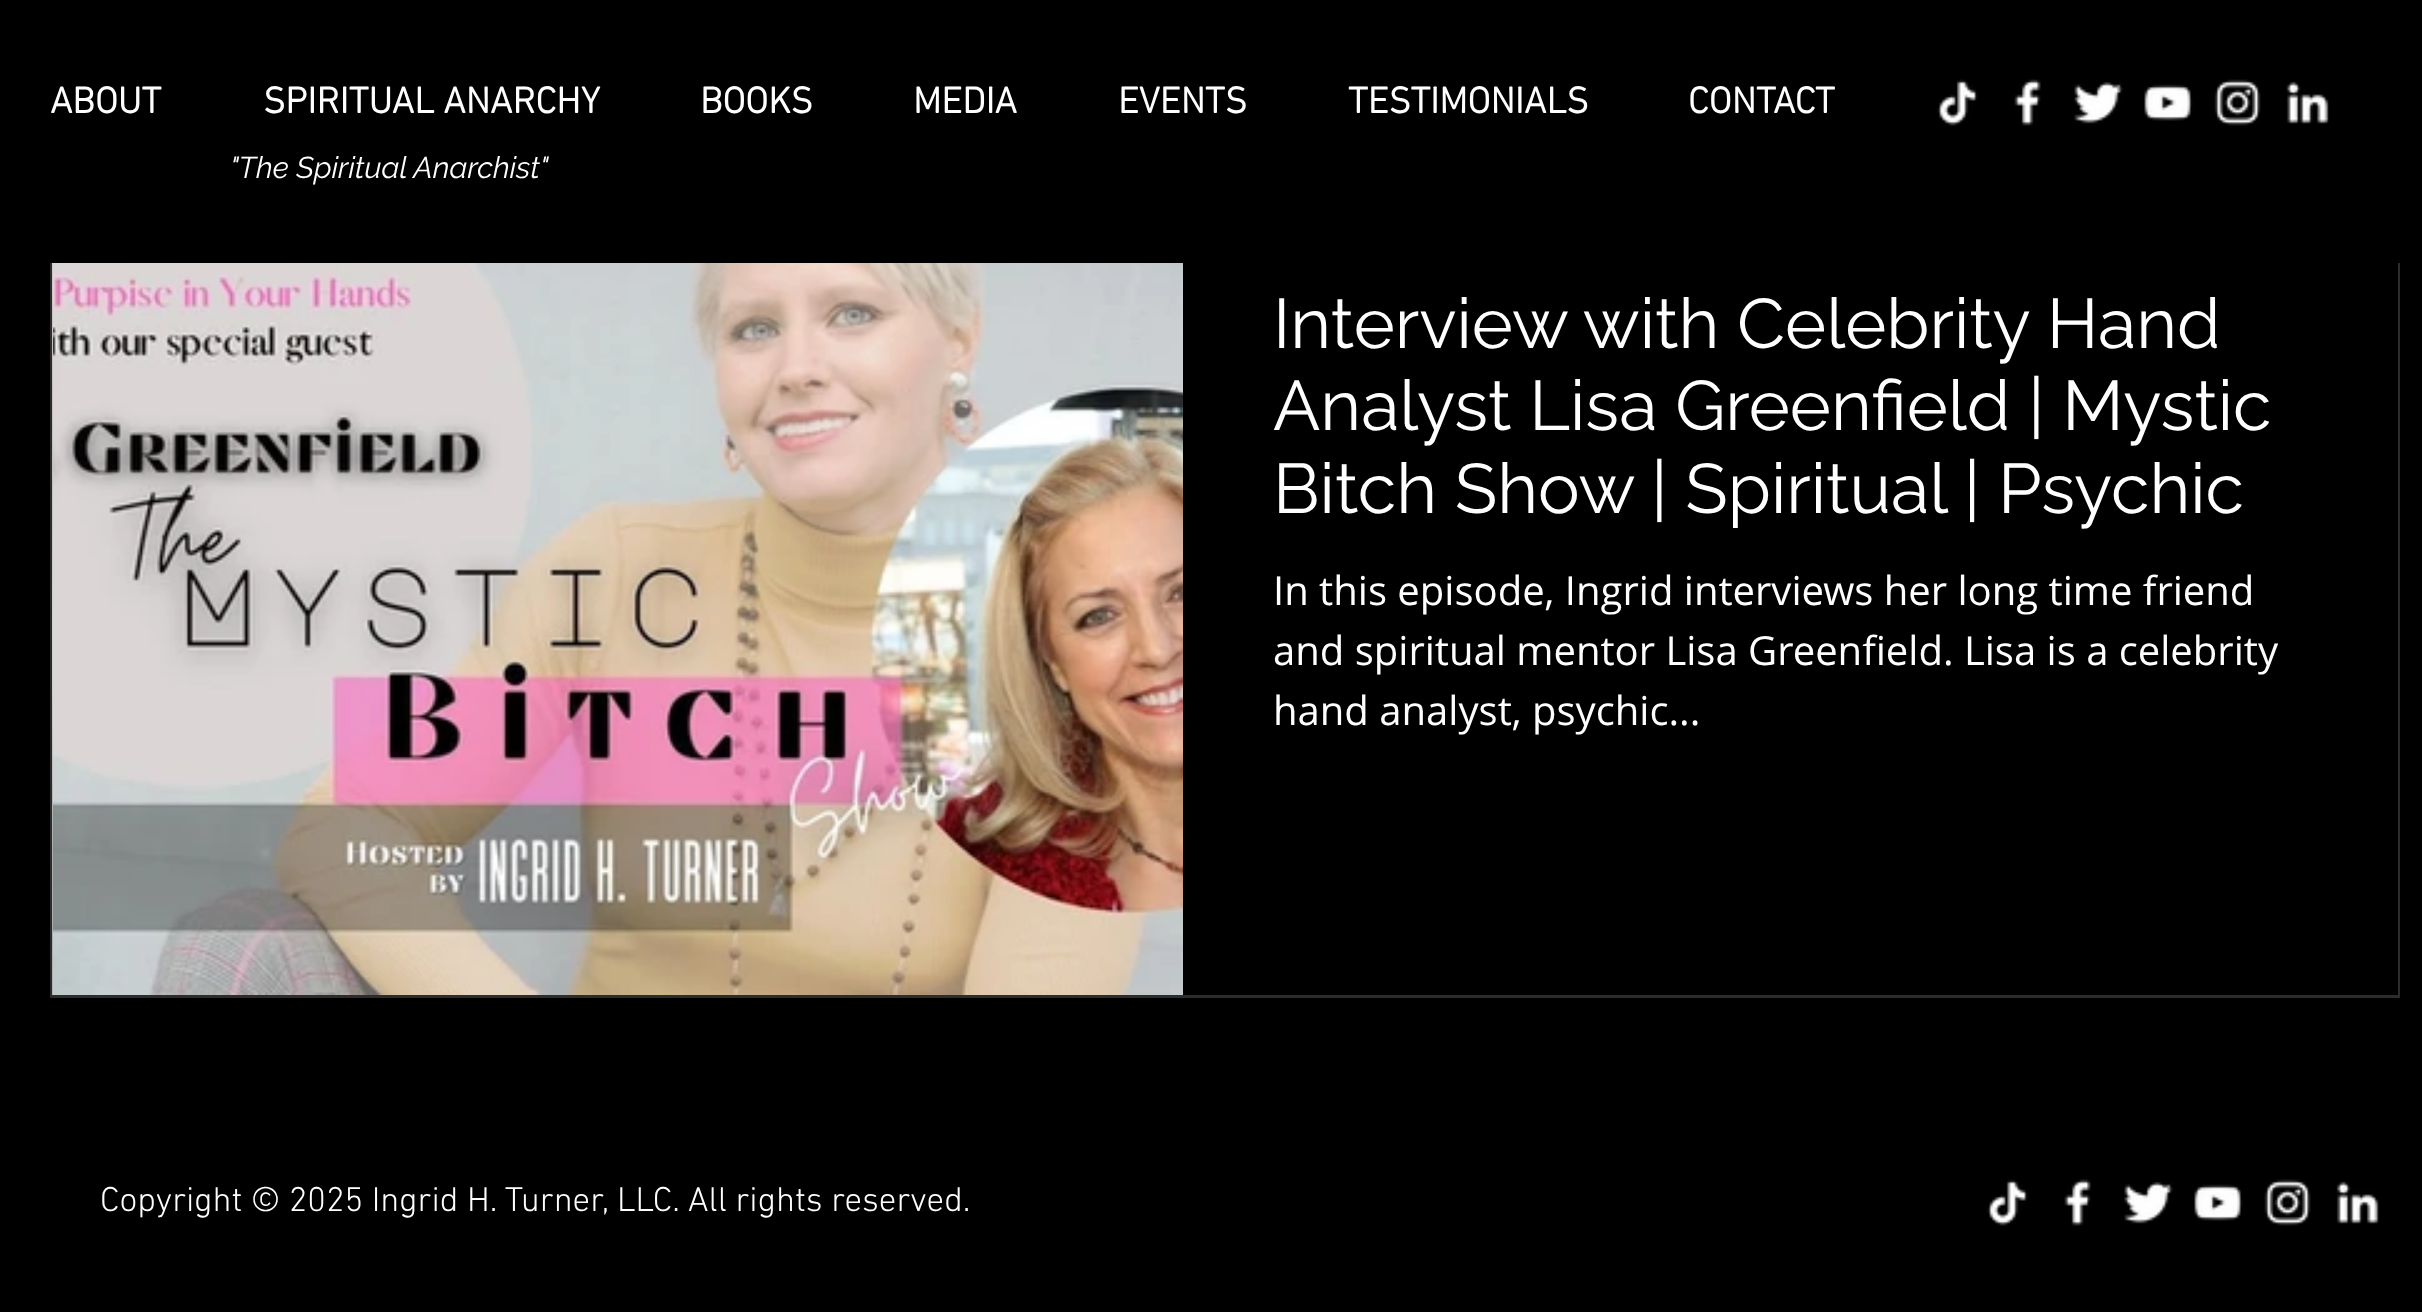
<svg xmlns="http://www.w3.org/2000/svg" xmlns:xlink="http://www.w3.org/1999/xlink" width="2422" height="1312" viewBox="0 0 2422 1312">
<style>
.cls-1{font:bold 37.5px 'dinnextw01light';fill:#ffffff}
.cls-2{font:italic 30px Raleway;fill:#ffffff}
.cls-3{font:70px Raleway;fill:#ffffff}
.cls-4{font:40px Open Sans;fill:#ffffff}
.cls-5{font:300 35px 'dinnextw01light';fill:#ffffff}
</style>
<rect width="100%" height="100%" fill="#000000"/>
<image xlink:href="image0.png" x="1937" y="79" width="41" height="47"/>
<image xlink:href="image1.png" x="2014" y="79" width="27" height="47"/>
<image xlink:href="image2.png" x="2074" y="82" width="49" height="42"/>
<image xlink:href="image3.png" x="2144" y="84" width="49" height="37"/>
<image xlink:href="image4.png" x="2214" y="79" width="47" height="47"/>
<image xlink:href="image5.png" x="2286" y="81" width="43" height="43"/>
<rect fill="none" stroke="#2c2c2c" stroke-width="3" x="51.5" y="146.5" width="2347" height="850"/>
<rect fill="#000000" x="50" y="145" width="2350" height="118"/>
<image xlink:href="image6.png" x="52" y="263" width="1" height="732"/>
<image xlink:href="image7.png" x="53" y="263" width="1130" height="732"/>
<rect fill="#000000" x="2397" y="263" width="1" height="732"/>
<image xlink:href="image8.png" x="1987" y="1179" width="41" height="47"/>
<image xlink:href="image9.png" x="2064" y="1179" width="27" height="47"/>
<image xlink:href="image2.png" x="2124" y="1182" width="49" height="42"/>
<image xlink:href="image3.png" x="2194" y="1184" width="49" height="37"/>
<image xlink:href="image10.png" x="2264" y="1179" width="47" height="47"/>
<image xlink:href="image11.png" x="2336" y="1181" width="43" height="43"/>
<text class="cls-1" x="50" y="113">ABOUT</text>
<text class="cls-1" x="263" y="113">SPIRITUAL ANARCHY</text>
<text class="cls-1" x="700" y="113">BOOKS</text>
<text class="cls-1" x="913" y="113">MEDIA</text>
<text class="cls-1" x="1118" y="113">EVENTS</text>
<text class="cls-1" x="1348" y="113">TESTIMONIALS</text>
<text class="cls-1" x="1688" y="113">CONTACT</text>
<text class="cls-2" x="230" y="178">"The Spiritual Anarchist"</text>
<text class="cls-3"><tspan x="1273" y="348">Interview with Celebrity Hand</tspan><tspan x="1273" y="430">Analyst Lisa Greenfield | Mystic</tspan><tspan x="1273" y="513">Bitch Show | Spiritual | Psychic</tspan></text>
<text class="cls-4"><tspan x="1273" y="605">In this episode, Ingrid interviews her long time friend</tspan><tspan x="1273" y="665">and spiritual mentor Lisa Greenfield. Lisa is a celebrity</tspan><tspan x="1273" y="725">hand analyst, psychic...</tspan></text>
<text class="cls-5" x="100" y="1211">Copyright © 2025 Ingrid H. Turner, LLC. All rights reserved.</text>
</svg>
